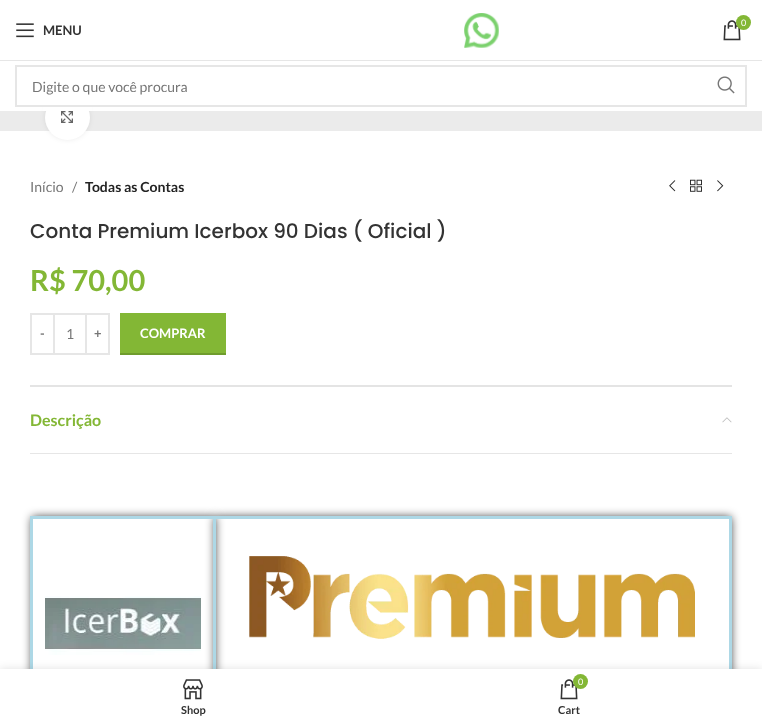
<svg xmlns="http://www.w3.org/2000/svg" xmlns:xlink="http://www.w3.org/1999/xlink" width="762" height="724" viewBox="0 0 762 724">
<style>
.cls-1{font:9px Lato;fill:#ffffff}
.cls-2{font:bold 13px Lato;fill:#333333}
.cls-3{font:14px Lato;fill:#767676}
.cls-4{font:bold 14px Lato;fill:#242424}
.cls-5{font:500 20px Poppins;fill:#333333}
.cls-6{font:bold 29px Lato;fill:#83b735}
.cls-7{font:bold 13px Lato;fill:#767676}
.cls-8{font:bold 13px Lato;fill:#ffffff}
.cls-9{font:bold 16px Lato;fill:#83b735}
.cls-10{font:bold 11px Lato;fill:#333333}
</style>
<defs>
<clipPath id="clip1"><path d="M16 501H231V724H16ZM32 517H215V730H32Z" clip-rule="evenodd"/></clipPath>
<clipPath id="clip2"><path d="M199 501H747V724H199ZM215 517H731V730H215Z" clip-rule="evenodd"/></clipPath>
</defs>
<rect width="100%" height="100%" fill="#ffffff"/>
<rect fill="#e6e6e6" x="0" y="60" width="762" height="1"/>
<image xlink:href="image0.png" x="464" y="13" width="35" height="35"/>
<image xlink:href="image1.png" x="723" y="20" width="18" height="21"/>
<circle fill="#83b735" cx="743.5" cy="22.5" r="7.5"/>
<image xlink:href="image2.png" x="16" y="23" width="18" height="15"/>
<rect fill="#ebebeb" x="0" y="111" width="762" height="20"/>
<rect fill="#000000" fill-opacity="0.08" filter="blur(2.5px)" x="45" y="95" width="45" height="45" rx="22.5"/>
<circle fill="#ffffff" cx="67.5" cy="117.5" r="22.5"/>
<rect fill="#ffffff" x="43" y="92" width="49" height="19"/>
<rect fill="none" stroke="#e6e6e6" stroke-width="2" x="16" y="66" width="730" height="40"/>
<image xlink:href="image3.png" x="717" y="76" width="18" height="18"/>
<image xlink:href="image4.png" x="61" y="111" width="12" height="12"/>
<image xlink:href="image5.png" x="669" y="180" width="7" height="12"/>
<image xlink:href="image6.png" x="690" y="179" width="12" height="13"/>
<image xlink:href="image7.png" x="717" y="180" width="7" height="12"/>
<rect fill="none" stroke="#e6e6e6" stroke-width="2" x="31" y="314" width="23" height="40"/>
<rect fill="#e6e6e6" x="55" y="313" width="30" height="2"/>
<rect fill="#e6e6e6" x="55" y="353" width="30" height="2"/>
<rect fill="none" stroke="#e6e6e6" stroke-width="2" x="86" y="314" width="23" height="40"/>
<rect fill="#83b735" x="120" y="313" width="106" height="40"/>
<rect fill="#6f9c2d" x="120" y="353" width="106" height="2"/>
<rect fill="#e4e4e4" x="30" y="385" width="702" height="2"/>
<image xlink:href="image8.png" x="722" y="417" width="10" height="6"/>
<rect fill="#e6e6e6" x="30" y="453" width="702" height="1"/>
<g clip-path="url(#clip1)">
<rect fill="#000000" fill-opacity="0.8" filter="blur(5px)" x="32" y="517" width="183" height="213"/>
</g>
<g clip-path="url(#clip2)">
<rect fill="#000000" fill-opacity="0.8" filter="blur(5px)" x="215" y="517" width="516" height="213"/>
</g>
<rect fill="#add8e6" x="213" y="516" width="519" height="3"/>
<rect fill="#add8e6" x="213" y="516" width="3" height="153"/>
<rect fill="#add8e6" x="30" y="516" width="186" height="3"/>
<rect fill="#add8e6" x="30" y="516" width="3" height="153"/>
<image xlink:href="image9.png" x="45" y="596" width="156" height="59"/>
<rect fill="#add8e6" x="729" y="516" width="3" height="153"/>
<image xlink:href="image10.png" x="249" y="556" width="446" height="83"/>
<rect fill="#000000" fill-opacity="0.12" filter="blur(4.5px)" x="0" y="669" width="762" height="55"/>
<rect fill="#ffffff" x="0" y="669" width="762" height="55"/>
<image xlink:href="image11.png" x="183" y="679" width="20" height="21"/>
<image xlink:href="image1.png" x="560" y="679" width="18" height="21"/>
<circle fill="#83b735" cx="580.5" cy="681.5" r="7.5"/>
<text class="cls-1" x="741" y="26">0</text>
<text class="cls-2" x="43" y="35">MENU</text>
<text class="cls-3" x="32" y="92">Digite o que você procura</text>
<text class="cls-3" x="30" y="192">Início</text>
<text class="cls-3" x="72" y="192">/</text>
<text class="cls-4" x="85" y="192">Todas as Contas</text>
<text class="cls-5" x="30" y="238">Conta Premium Icerbox 90 Dias ( Oficial )</text>
<text class="cls-6" x="30" y="291">R$ 70,00</text>
<text class="cls-7" x="40" y="338">-</text>
<text class="cls-3" x="66" y="339">1</text>
<text class="cls-7" x="94" y="338">+</text>
<text class="cls-8" x="140" y="338">COMPRAR</text>
<text class="cls-9" x="30" y="426">Descrição</text>
<text class="cls-10" x="181" y="714">Shop</text>
<text class="cls-1" x="578" y="685">0</text>
<text class="cls-10" x="558" y="714">Cart</text>
</svg>
